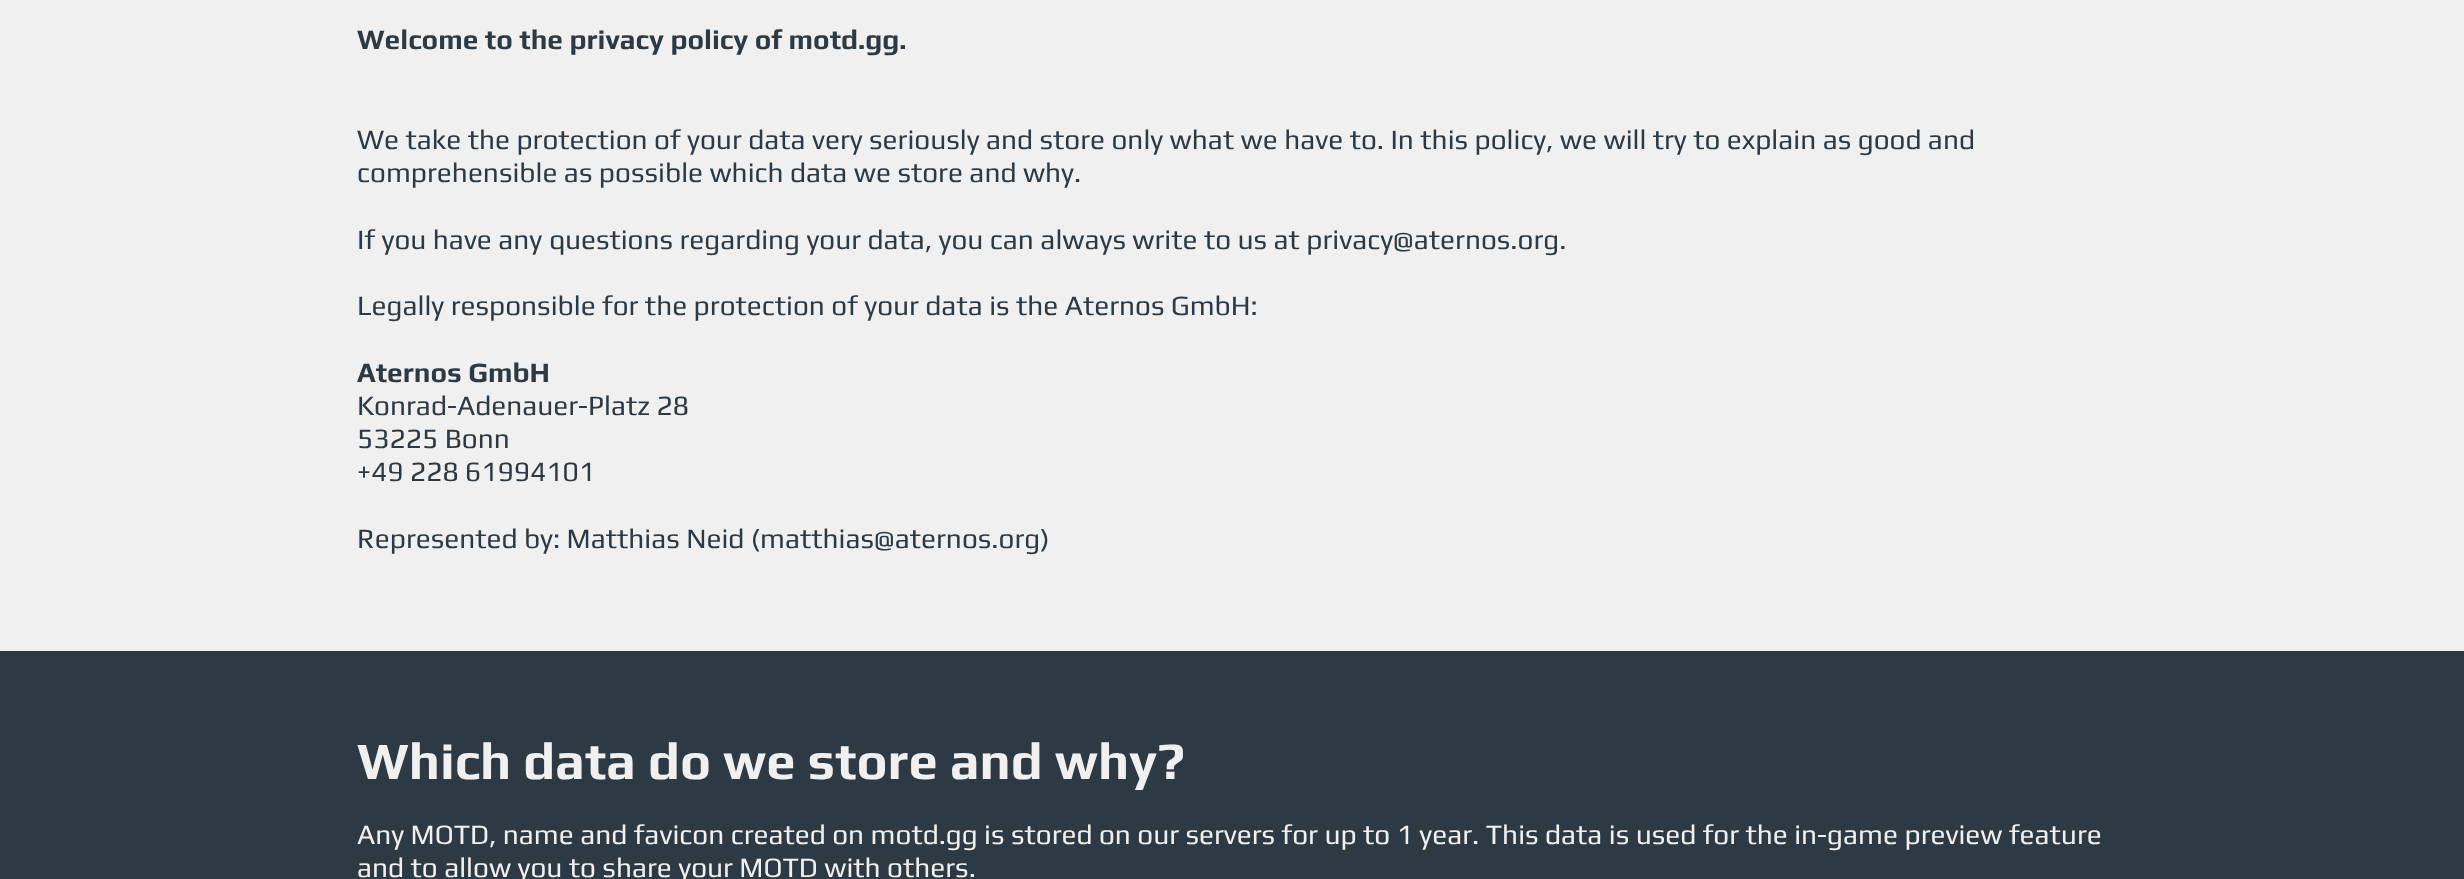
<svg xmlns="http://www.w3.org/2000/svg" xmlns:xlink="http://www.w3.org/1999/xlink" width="2464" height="879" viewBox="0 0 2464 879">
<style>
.cls-1{font:bold 28px Play;fill:#2d3943}
.cls-2{font:28px Play;fill:#2d3943}
.cls-3{font:bold 52.5px Play;fill:#f0f0f0}
.cls-4{font:28px Play;fill:#f0f0f0}
</style>
<rect width="100%" height="100%" fill="#f0f0f0"/>
<rect fill="#2d3943" x="0" y="651" width="2464" height="228"/>
<text class="cls-1" x="357" y="49">Welcome to the privacy policy of motd.gg.</text>
<text class="cls-2"><tspan x="357" y="149">We take the protection of your data very seriously and store only what we have to. In this policy, we will try to explain as good and</tspan><tspan x="357" y="182">comprehensible as possible which data we store and why.</tspan></text>
<text class="cls-2" x="357" y="249">If you have any questions regarding your data, you can always write to us at privacy@aternos.org.</text>
<text class="cls-2" x="357" y="315">Legally responsible for the protection of your data is the Aternos GmbH:</text>
<text class="cls-1" x="357" y="382">Aternos GmbH</text>
<text class="cls-2"><tspan x="357" y="415">Konrad-Adenauer-Platz 28</tspan><tspan x="357" y="448">53225 Bonn</tspan><tspan x="357" y="481">+49 228 61994101</tspan></text>
<text class="cls-2" x="357" y="548">Represented by: Matthias Neid (matthias@aternos.org)</text>
<text class="cls-3" x="357" y="779">Which data do we store and why?</text>
<text class="cls-4"><tspan x="357" y="844">Any MOTD, name and favicon created on motd.gg is stored on our servers for up to 1 year. This data is used for the in-game preview feature</tspan><tspan x="357" y="877">and to allow you to share your MOTD with others.</tspan></text>
</svg>
